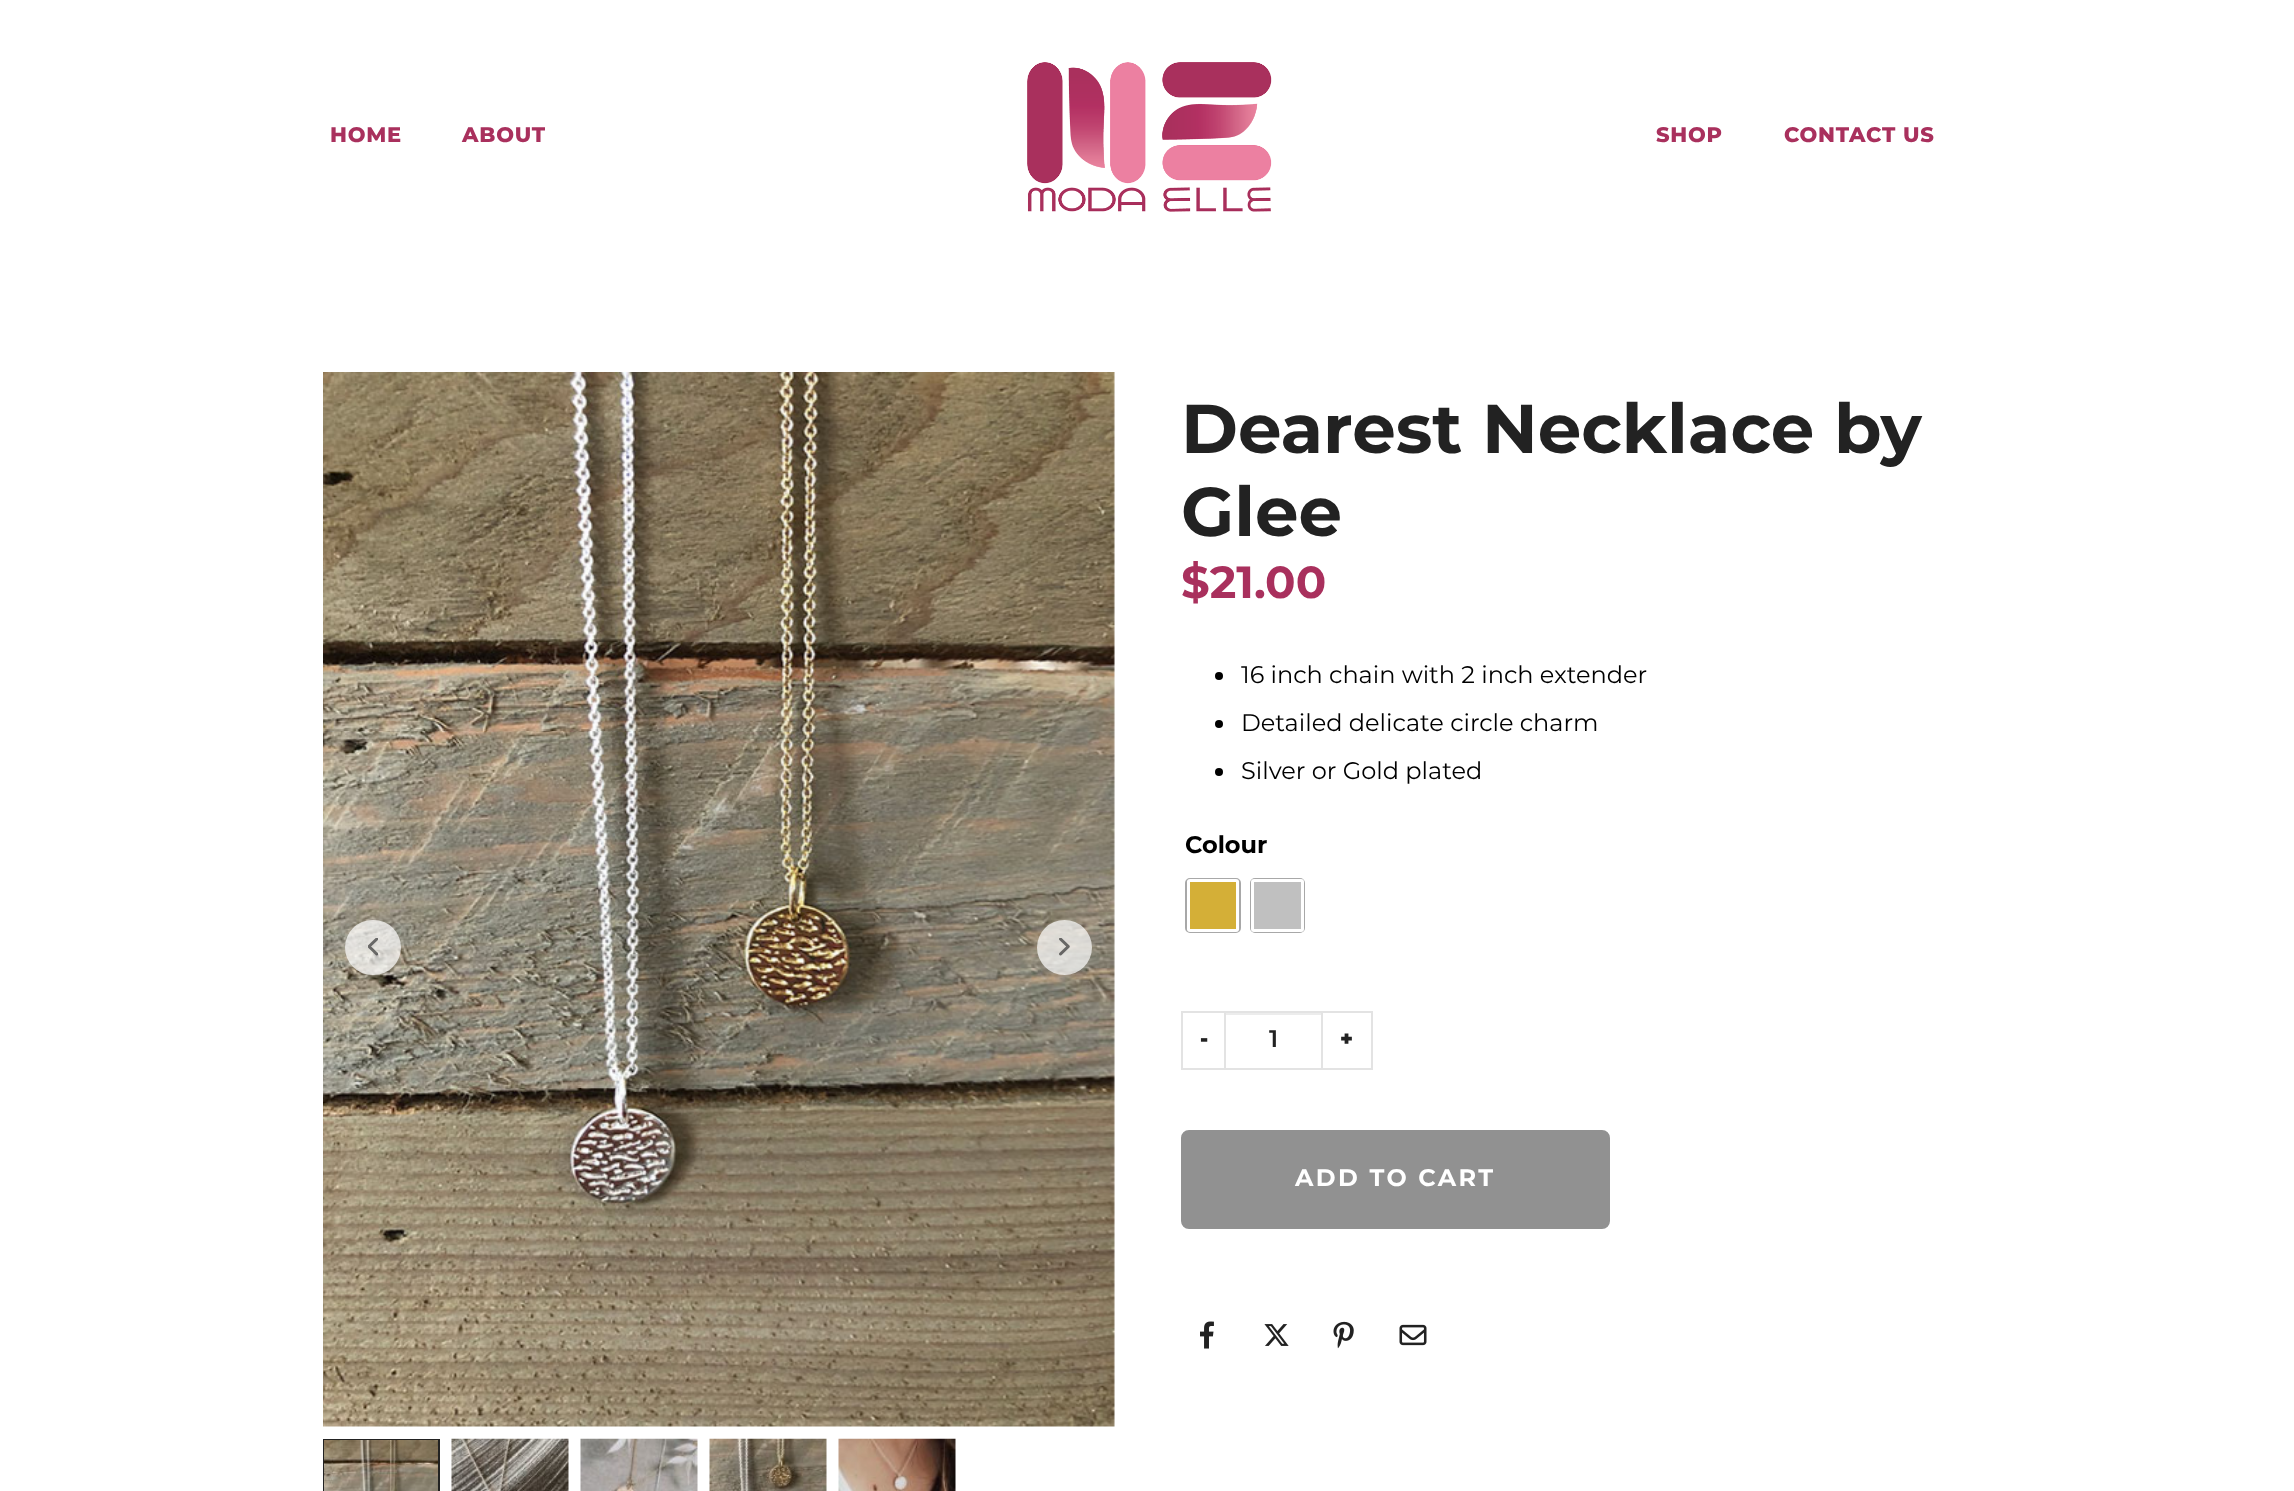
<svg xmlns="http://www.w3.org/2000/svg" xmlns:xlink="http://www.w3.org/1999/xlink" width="2294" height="1491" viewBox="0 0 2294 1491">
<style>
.cls-1{font:800 21px Montserrat;letter-spacing:0.75px;fill:#a9305d}
.cls-2{font:bold 69px Montserrat;fill:#222222}
.cls-3{font:bold 45px Montserrat;fill:#a9305d}
.cls-4{font:24px Montserrat;fill:#000000}
.cls-5{font:bold 24px Montserrat;fill:#000000}
.cls-6{font:900 21px Montserrat;fill:#222222}
.cls-7{font:600 24px Montserrat;fill:#222222}
.cls-8{font:bold 24px Montserrat;letter-spacing:2.4px;fill:#ffffff}
</style>
<rect width="100%" height="100%" fill="#ffffff"/>
<image xlink:href="image0.png" x="1027" y="62" width="245" height="150"/>
<image xlink:href="image1.png" x="323" y="372" width="792" height="1055"/>
<rect fill="#ffffff" fill-opacity="0.7" x="345" y="920" width="56" height="55" rx="27.5"/>
<image xlink:href="image2.png" x="368" y="938" width="10" height="18"/>
<circle fill="#ffffff" fill-opacity="0.7" cx="1064.5" cy="947.5" r="27.5"/>
<image xlink:href="image3.png" x="1059" y="938" width="11" height="18"/>
<rect fill="none" stroke="#222222" stroke-width="2" x="324" y="1440" width="115" height="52"/>
<image xlink:href="image4.png" x="324" y="1440" width="114" height="51"/>
<image xlink:href="image5.png" x="451" y="1438" width="118" height="53"/>
<image xlink:href="image6.png" x="580" y="1438" width="118" height="53"/>
<image xlink:href="image7.png" x="709" y="1438" width="118" height="53"/>
<image xlink:href="image8.png" x="838" y="1438" width="118" height="53"/>
<circle fill="#000000" cx="1219" cy="676" r="4"/>
<circle fill="#000000" cx="1219" cy="724" r="4"/>
<circle fill="#000000" cx="1219" cy="772" r="4"/>
<rect fill="none" stroke="#a8a8a8" stroke-width="2" x="1186" y="879" width="54" height="53" rx="4"/>
<rect fill="#ffffff" x="1187" y="879" width="52" height="53" rx="3"/>
<rect fill="#d4af37" x="1190" y="882" width="46" height="47"/>
<rect fill="none" stroke="#a8a8a8" stroke-width="2" x="1251" y="879" width="53" height="53" rx="4"/>
<rect fill="#ffffff" x="1251" y="879" width="53" height="53" rx="3"/>
<rect fill="#c0c0c0" x="1254" y="882" width="47" height="47"/>
<rect fill="#ececec" x="1226" y="1013" width="96" height="2"/>
<rect fill="none" stroke="#e3e3e3" stroke-width="2" x="1225" y="1012" width="97" height="57"/>
<rect fill="#e3e3e3" x="1181" y="1011" width="45" height="2"/>
<rect fill="#e3e3e3" x="1181" y="1068" width="45" height="2"/>
<rect fill="#e3e3e3" x="1181" y="1011" width="2" height="59"/>
<rect fill="#e3e3e3" x="1322" y="1011" width="51" height="2"/>
<rect fill="#e3e3e3" x="1371" y="1011" width="2" height="59"/>
<rect fill="#e3e3e3" x="1322" y="1068" width="51" height="2"/>
<rect fill="#919191" stroke="#919191" stroke-width="2" x="1182" y="1131" width="427" height="97" rx="7"/>
<image xlink:href="image9.png" x="1200" y="1321" width="14" height="28"/>
<image xlink:href="image10.png" x="1264" y="1324" width="25" height="22"/>
<image xlink:href="image11.png" x="1333" y="1321" width="21" height="28"/>
<image xlink:href="image12.png" x="1399" y="1324" width="28" height="22"/>
<text class="cls-1" x="330" y="142">HOME</text>
<text class="cls-1" x="462" y="142">ABOUT</text>
<text class="cls-1" x="1656" y="142">SHOP</text>
<text class="cls-1" x="1784" y="142">CONTACT US</text>
<text class="cls-2"><tspan x="1181" y="453">Dearest Necklace by</tspan><tspan x="1181" y="536">Glee</tspan></text>
<text class="cls-3" x="1181" y="598">$21.00</text>
<text class="cls-4" x="1241" y="683">16 inch chain with 2 inch extender</text>
<text class="cls-4" x="1241" y="731">Detailed delicate circle charm</text>
<text class="cls-4" x="1241" y="779">Silver or Gold plated</text>
<text class="cls-5" x="1185" y="853">Colour</text>
<text class="cls-6" x="1200" y="1046">-</text>
<text class="cls-7" x="1269" y="1047">1</text>
<text class="cls-6" x="1340" y="1046">+</text>
<text class="cls-8" x="1295" y="1186">ADD TO CART</text>
</svg>
